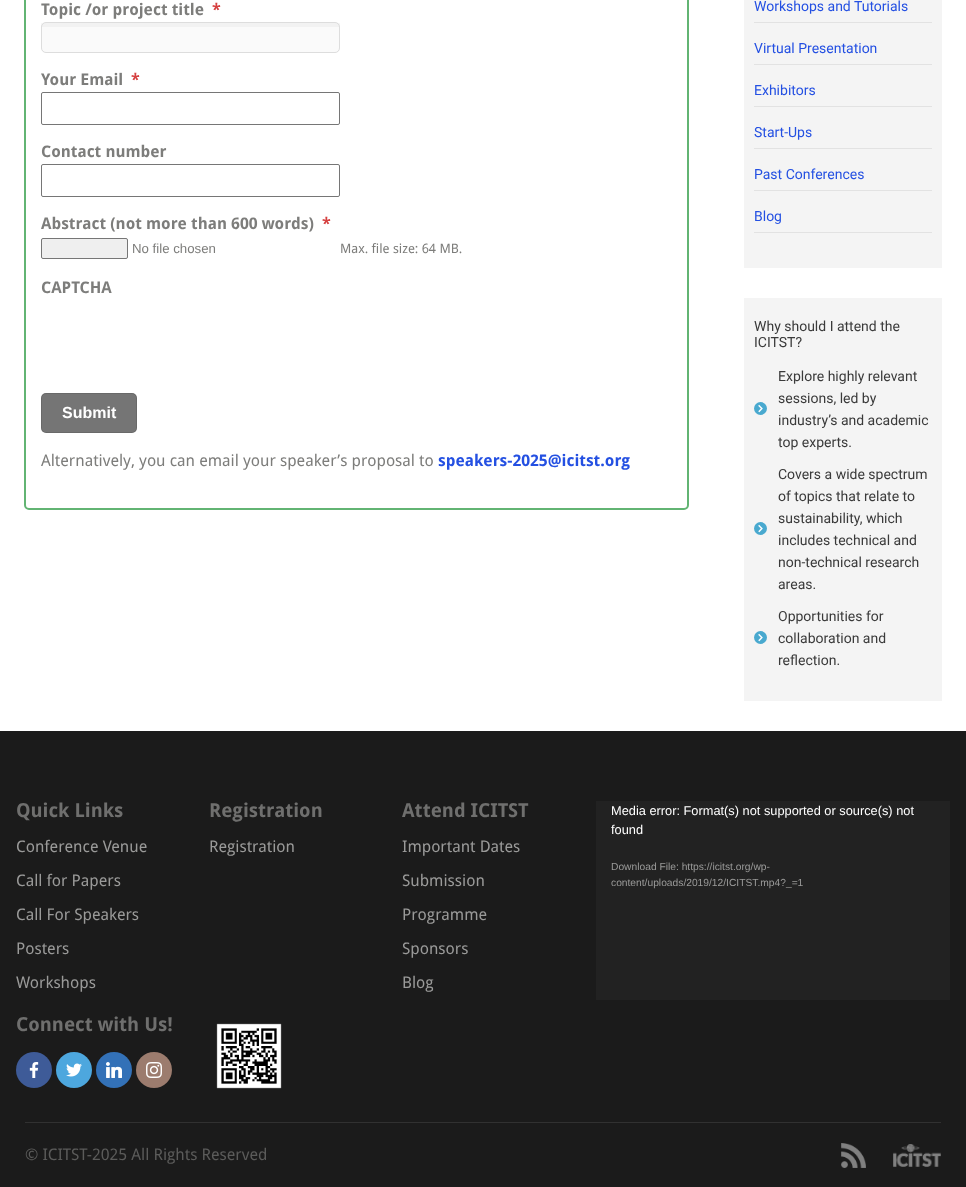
<svg xmlns="http://www.w3.org/2000/svg" xmlns:xlink="http://www.w3.org/1999/xlink" width="966" height="1187" viewBox="0 0 966 1187">
<style>
.cls-1{font:bold 16px Droid Sans;fill:#7d7d7b}
.cls-2{font:bold 16px Droid Sans;fill:#d64040}
.cls-3{font:13.25px Liberation Sans;fill:#7d7d7b}
.cls-4{font:13px Droid Sans;fill:#7d7d7b}
.cls-5{font:bold 16px Liberation Sans;fill:#ffffff}
.cls-6{font:16px Droid Sans;fill:#7d7d7b}
.cls-7{font:bold 16px Droid Sans;fill:#2450e2}
.cls-8{font:14px Roboto;fill:#2450e2}
.cls-9{font:14px Roboto;fill:#3a3a3a}
.cls-10{font:bold 19.25px Droid Sans;fill:#6f6f6e}
.cls-11{font:16px Droid Sans;fill:#9a9a99}
.cls-12{font:12.8px Liberation Sans;fill:#ffffff}
.cls-13{font:10.25px Liberation Sans;fill:#9a9a99}
.cls-14{font:16px Droid Sans;fill:#5b5b5a}
</style>
<rect width="100%" height="100%" fill="#1b1b1b"/>
<rect fill="#ffffff" x="0" y="0" width="966" height="731"/>
<rect fill="none" stroke="#62b473" stroke-width="2" x="25" y="-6" width="663" height="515" rx="4"/>
<rect fill="#fafafa" x="41" y="22" width="299" height="31" rx="5"/>
<rect fill="#000000" fill-opacity="0.03" x="41" y="23" width="299" height="4"/>
<rect fill="none" stroke="#dddddd" x="41.5" y="22.5" width="298" height="30" rx="4.5"/>
<rect fill="none" stroke="#767676" x="41.5" y="92.5" width="298" height="32" rx="1.5"/>
<rect fill="none" stroke="#767676" x="41.5" y="164.5" width="298" height="32" rx="1.5"/>
<rect fill="#efefef" stroke="#767676" x="41.5" y="238.5" width="86" height="20" rx="1.5"/>
<rect fill="#757575" x="41" y="393" width="96" height="40" rx="5"/>
<rect fill="none" stroke="#000000" stroke-opacity="0.1" x="41.5" y="393.5" width="95" height="39" rx="4.5"/>
<rect fill="#f4f4f4" x="744" y="0" width="198" height="268"/>
<rect fill="#e2e2e2" x="754" y="22" width="178" height="1"/>
<rect fill="#e2e2e2" x="754" y="64" width="178" height="1"/>
<rect fill="#e2e2e2" x="754" y="106" width="178" height="1"/>
<rect fill="#e2e2e2" x="754" y="148" width="178" height="1"/>
<rect fill="#e2e2e2" x="754" y="190" width="178" height="1"/>
<rect fill="#e2e2e2" x="754" y="232" width="178" height="1"/>
<rect fill="#f4f4f4" x="744" y="298" width="198" height="403"/>
<circle fill="#49a9cf" cx="760.5" cy="408.5" r="6.5"/>
<image xlink:href="image0.png" x="758" y="404" width="5" height="9"/>
<circle fill="#49a9cf" cx="760.5" cy="528.5" r="6.5"/>
<image xlink:href="image0.png" x="758" y="524" width="5" height="9"/>
<circle fill="#49a9cf" cx="760.5" cy="637.5" r="6.5"/>
<image xlink:href="image0.png" x="758" y="633" width="5" height="9"/>
<circle fill="#3e5b98" cx="34" cy="1070" r="18"/>
<image xlink:href="image1.png" x="29" y="1062" width="10" height="16"/>
<circle fill="#4da7de" cx="74" cy="1070" r="18"/>
<image xlink:href="image2.png" x="66" y="1063" width="16" height="14"/>
<circle fill="#3371b7" cx="114" cy="1070" r="18"/>
<image xlink:href="image3.png" x="106" y="1062" width="16" height="16"/>
<circle fill="#9c7c6e" cx="154" cy="1070" r="18"/>
<image xlink:href="image4.png" x="146" y="1062" width="16" height="16"/>
<image xlink:href="image5.png" x="216" y="1023" width="66" height="66"/>
<rect fill="#222222" x="596" y="801" width="354" height="199"/>
<rect fill="#313131" x="25" y="1122" width="916" height="1"/>
<image xlink:href="image6.png" x="841" y="1143" width="25" height="25"/>
<image xlink:href="image7.png" x="893" y="1144" width="48" height="23"/>
<text class="cls-1" x="41" y="15">Topic /or project title</text>
<text class="cls-2" x="212" y="15">*</text>
<text class="cls-1" x="41" y="85">Your Email</text>
<text class="cls-2" x="131" y="85">*</text>
<text class="cls-1" x="41" y="157">Contact number</text>
<text class="cls-1" x="41" y="229">Abstract (not more than 600 words)</text>
<text class="cls-2" x="322" y="229">*</text>
<text class="cls-3" x="132" y="253">No file chosen</text>
<text class="cls-4" x="340" y="253">Max. file size: 64 MB.</text>
<text class="cls-1" x="41" y="293">CAPTCHA</text>
<text class="cls-5" x="62" y="418">Submit</text>
<text class="cls-6" x="41" y="466">Alternatively, you can email your speaker’s proposal to</text>
<text class="cls-7" x="438" y="466">speakers-2025@icitst.org</text>
<text class="cls-8" x="754" y="11">Workshops and Tutorials</text>
<text class="cls-8" x="754" y="53">Virtual Presentation</text>
<text class="cls-8" x="754" y="95">Exhibitors</text>
<text class="cls-8" x="754" y="137">Start-Ups</text>
<text class="cls-8" x="754" y="179">Past Conferences</text>
<text class="cls-8" x="754" y="221">Blog</text>
<text class="cls-9"><tspan x="754" y="331">Why should I attend the</tspan><tspan x="754" y="347">ICITST?</tspan></text>
<text class="cls-9"><tspan x="778" y="381">Explore highly relevant</tspan><tspan x="778" y="403">sessions, led by</tspan><tspan x="778" y="425">industry’s and academic</tspan><tspan x="778" y="447">top experts.</tspan></text>
<text class="cls-9"><tspan x="778" y="479">Covers a wide spectrum</tspan><tspan x="778" y="501">of topics that relate to</tspan><tspan x="778" y="523">sustainability, which</tspan><tspan x="778" y="545">includes technical and</tspan><tspan x="778" y="567">non-technical research</tspan><tspan x="778" y="589">areas.</tspan></text>
<text class="cls-9"><tspan x="778" y="621">Opportunities for</tspan><tspan x="778" y="643">collaboration and</tspan><tspan x="778" y="665">reflection.</tspan></text>
<text class="cls-10" x="16" y="817">Quick Links</text>
<text class="cls-11" x="16" y="852">Conference Venue</text>
<text class="cls-11" x="16" y="886">Call for Papers</text>
<text class="cls-11" x="16" y="920">Call For Speakers</text>
<text class="cls-11" x="16" y="954">Posters</text>
<text class="cls-11" x="16" y="988">Workshops</text>
<text class="cls-10" x="16" y="1031">Connect with Us!</text>
<text class="cls-10" x="209" y="817">Registration</text>
<text class="cls-11" x="209" y="852">Registration</text>
<text class="cls-10" x="402" y="817">Attend ICITST</text>
<text class="cls-11" x="402" y="852">Important Dates</text>
<text class="cls-11" x="402" y="886">Submission</text>
<text class="cls-11" x="402" y="920">Programme</text>
<text class="cls-11" x="402" y="954">Sponsors</text>
<text class="cls-11" x="402" y="988">Blog</text>
<text class="cls-12"><tspan x="611" y="815">Media error: Format(s) not supported or source(s) not</tspan><tspan x="611" y="834">found</tspan></text>
<text class="cls-13"><tspan x="611" y="870">Download File: https://icitst.org/wp-</tspan><tspan x="611" y="886">content/uploads/2019/12/ICITST.mp4?_=1</tspan></text>
<text class="cls-14" x="25" y="1160">© ICITST-2025 All Rights Reserved</text>
</svg>
